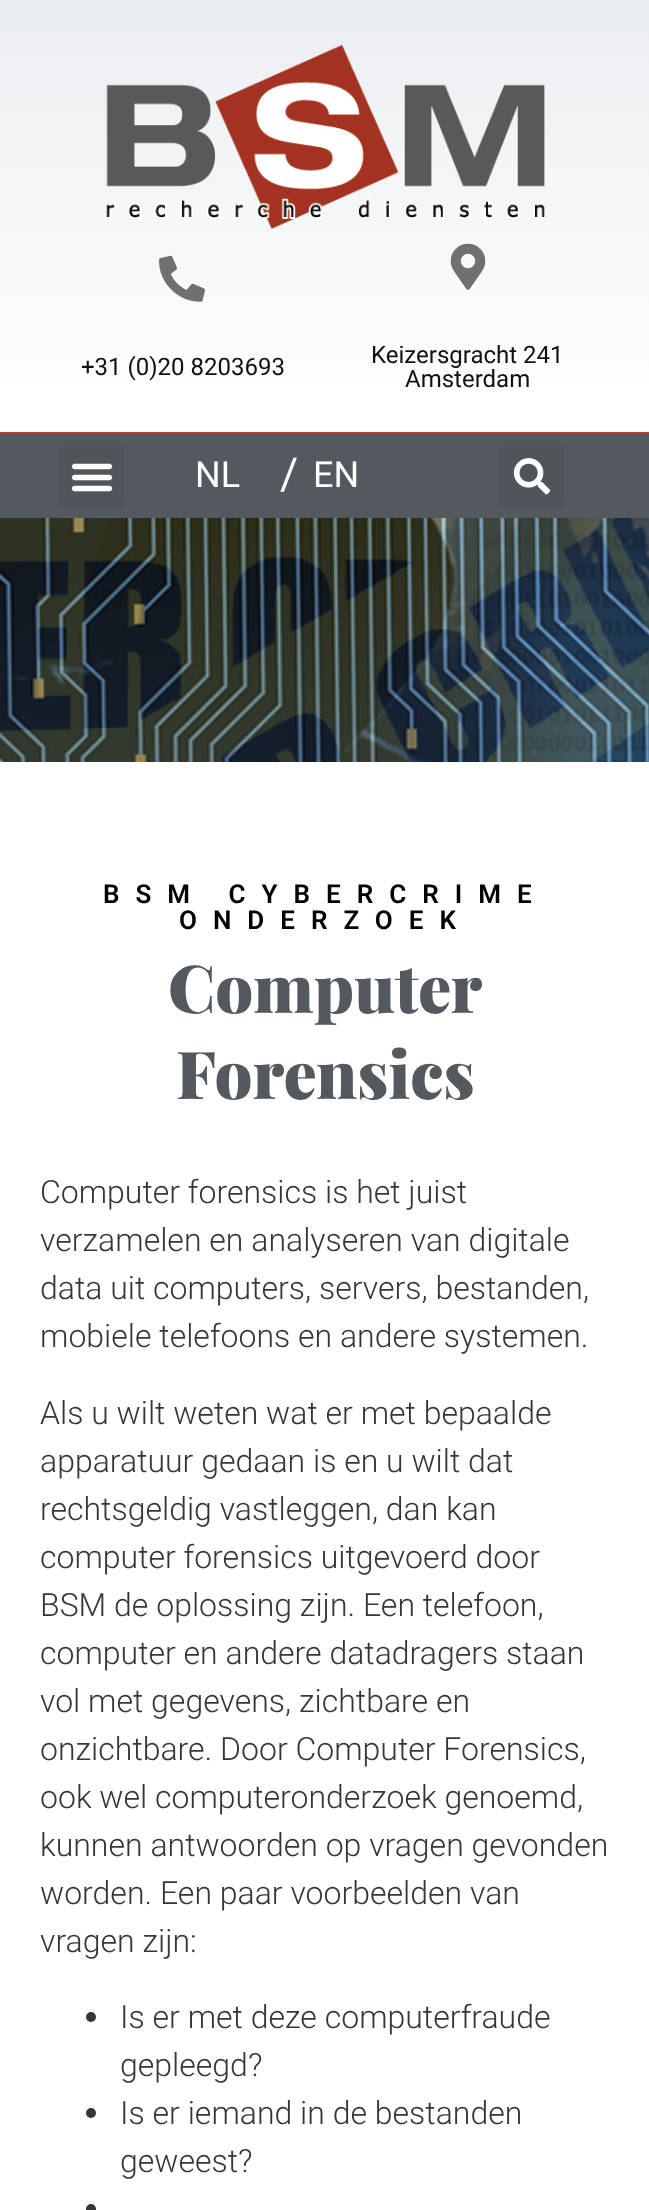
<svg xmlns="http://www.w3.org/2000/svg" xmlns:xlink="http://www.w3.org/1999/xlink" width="649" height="2210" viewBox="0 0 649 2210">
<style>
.cls-1{font:24px Roboto;fill:#111111}
.cls-2{font:36px Roboto;fill:#ffffff}
.cls-3{font:44px Roboto;fill:#ffffff}
.cls-4{font:600 26px Roboto;letter-spacing:16px;fill:#000000}
.cls-5{font:900 66px Playfair Display;fill:#54595f}
.cls-6{font:300 32px Roboto;fill:#363636}
</style>
<defs>
<linearGradient id="g1" gradientUnits="userSpaceOnUse" x1="325" y1="0" x2="325" y2="432"><stop offset="0" stop-color="#ebeef1"/><stop offset="1" stop-color="#ffffff"/></linearGradient>
</defs>
<rect width="100%" height="100%" fill="#ffffff"/>
<rect fill="url(#g1)" x="0" y="0" width="649" height="378"/>
<image xlink:href="image0.png" x="105" y="44" width="441" height="186"/>
<image xlink:href="image1.png" x="159" y="255" width="46" height="47"/>
<image xlink:href="image2.png" x="450" y="243" width="36" height="47"/>
<rect fill="#54595f" x="0" y="434" width="649" height="84"/>
<rect fill="#cc3333" x="0" y="432" width="649" height="2"/>
<rect fill="#50555a" x="58" y="442" width="66" height="66" rx="6"/>
<image xlink:href="image3.png" x="71" y="463" width="42" height="29"/>
<rect fill="#50555a" x="498" y="442" width="66" height="66" rx="6"/>
<image xlink:href="image4.png" x="513" y="458" width="38" height="37"/>
<image xlink:href="image5.png" x="0" y="518" width="649" height="244"/>
<circle fill="#363636" cx="91" cy="2017" r="5"/>
<circle fill="#363636" cx="91" cy="2113" r="5"/>
<circle fill="#363636" cx="91" cy="2209" r="5"/>
<text class="cls-1" x="81" y="375">+31 (0)20 8203693</text>
<text class="cls-1" x="371" y="363">Keizersgracht 241</text>
<text class="cls-1" x="405" y="387">Amsterdam</text>
<text class="cls-2" x="195" y="487">NL</text>
<text class="cls-3" x="280" y="489">/</text>
<text class="cls-2" x="313" y="487">EN</text>
<text class="cls-4" x="103" y="903">BSM CYBERCRIME</text>
<text class="cls-4" x="179" y="929">ONDERZOEK</text>
<text class="cls-5" x="168" y="1013">Computer</text>
<text class="cls-5" x="176" y="1099">Forensics</text>
<text class="cls-6"><tspan x="40" y="1203">Computer forensics is het juist</tspan><tspan x="40" y="1251">verzamelen en analyseren van digitale</tspan><tspan x="40" y="1299">data uit computers, servers, bestanden,</tspan><tspan x="40" y="1347">mobiele telefoons en andere systemen.</tspan></text>
<text class="cls-6"><tspan x="40" y="1424">Als u wilt weten wat er met bepaalde</tspan><tspan x="40" y="1472">apparatuur gedaan is en u wilt dat</tspan><tspan x="40" y="1520">rechtsgeldig vastleggen, dan kan</tspan><tspan x="40" y="1568">computer forensics uitgevoerd door</tspan><tspan x="40" y="1616">BSM de oplossing zijn. Een telefoon,</tspan><tspan x="40" y="1664">computer en andere datadragers staan</tspan><tspan x="40" y="1712">vol met gegevens, zichtbare en</tspan><tspan x="40" y="1760">onzichtbare. Door Computer Forensics,</tspan><tspan x="40" y="1808">ook wel computeronderzoek genoemd,</tspan><tspan x="40" y="1856">kunnen antwoorden op vragen gevonden</tspan><tspan x="40" y="1904">worden. Een paar voorbeelden van</tspan><tspan x="40" y="1952">vragen zijn:</tspan></text>
<text class="cls-6"><tspan x="120" y="2028">Is er met deze computerfraude</tspan><tspan x="120" y="2076">gepleegd?</tspan><tspan x="120" y="2124">Is er iemand in de bestanden</tspan><tspan x="120" y="2172">geweest?</tspan></text>
</svg>
